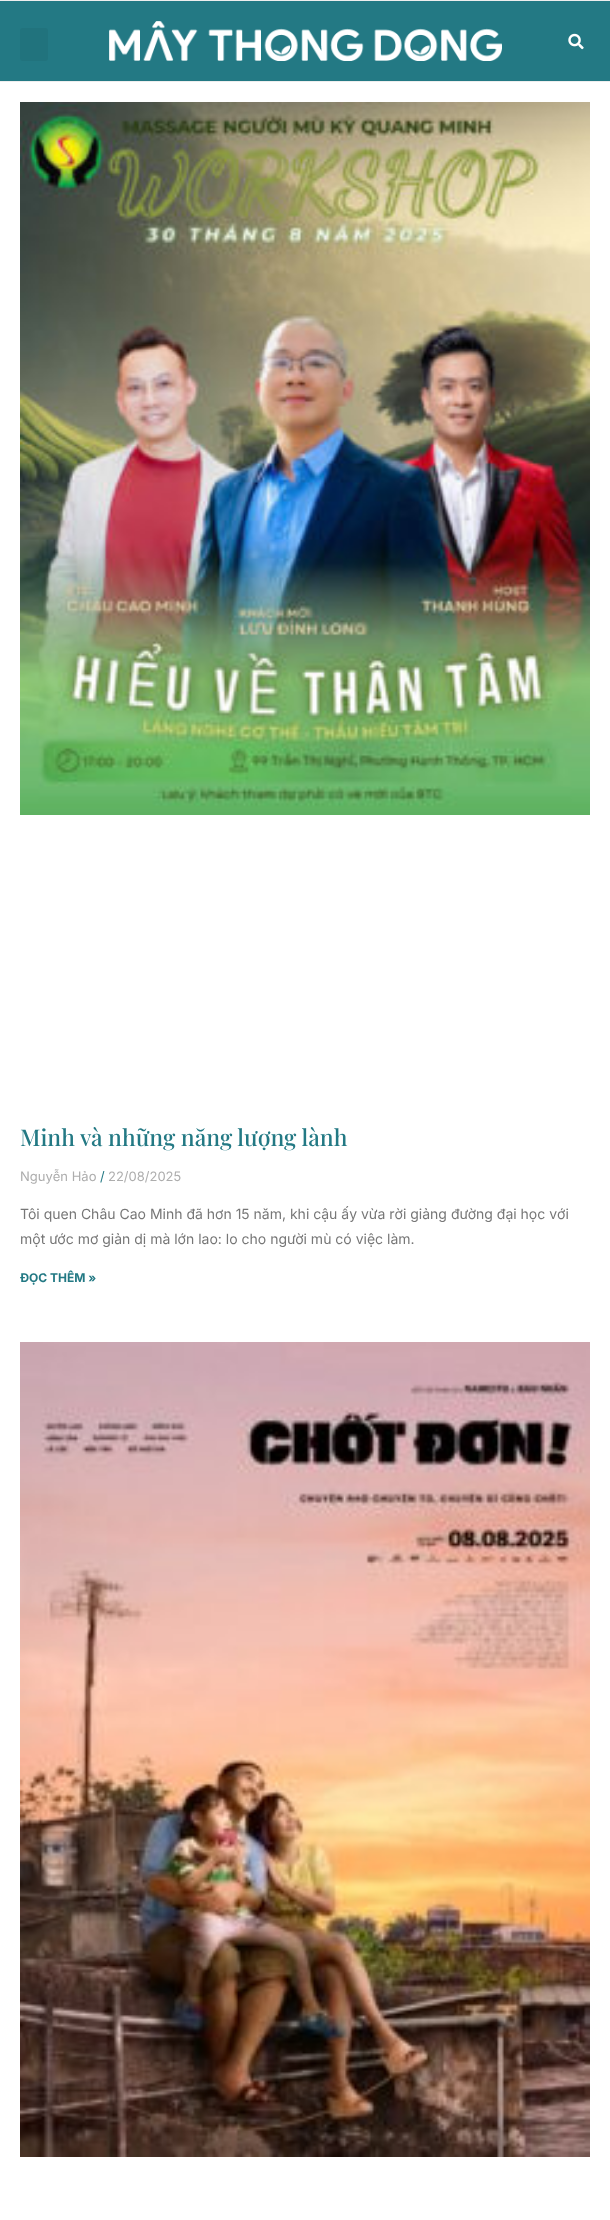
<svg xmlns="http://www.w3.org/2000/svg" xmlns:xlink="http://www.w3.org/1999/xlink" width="610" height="2220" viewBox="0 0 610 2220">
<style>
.cls-1{font:500 23px Playfair Display;fill:#237984}
.cls-2{font:13px Inter;fill:#adadad}
.cls-3{font:13px Inter;fill:#237984}
.cls-4{font:14px Inter;fill:#777777}
.cls-5{font:bold 12px Inter;fill:#237984}
</style>
<rect width="100%" height="100%" fill="#ffffff"/>
<rect fill="#237984" x="0" y="1" width="610" height="80"/>
<rect fill="#eeeeee" x="0" y="0" width="610" height="1"/>
<rect fill="#eeeeee" x="0" y="81" width="610" height="1"/>
<rect fill="#21737d" x="20" y="28" width="28" height="33" rx="3"/>
<image xlink:href="image0.png" x="109" y="21" width="393" height="40"/>
<image xlink:href="image1.png" x="568" y="33" width="16" height="17"/>
<image xlink:href="image2.png" x="20" y="102" width="570" height="713"/>
<image xlink:href="image3.png" x="20" y="1342" width="570" height="815"/>
<text class="cls-1" x="20" y="1146">Minh và những năng lượng lành</text>
<text class="cls-2" x="20" y="1181">Nguyễn Hảo</text>
<text class="cls-3" x="100" y="1181">/</text>
<text class="cls-2" x="108" y="1181">22/08/2025</text>
<text class="cls-4"><tspan x="20" y="1219">Tôi quen Châu Cao Minh đã hơn 15 năm, khi cậu ấy vừa rời giảng đường đại học với</tspan><tspan x="20" y="1244">một ước mơ giản dị mà lớn lao: lo cho người mù có việc làm.</tspan></text>
<text class="cls-5" x="20" y="1282">ĐỌC THÊM »</text>
</svg>
